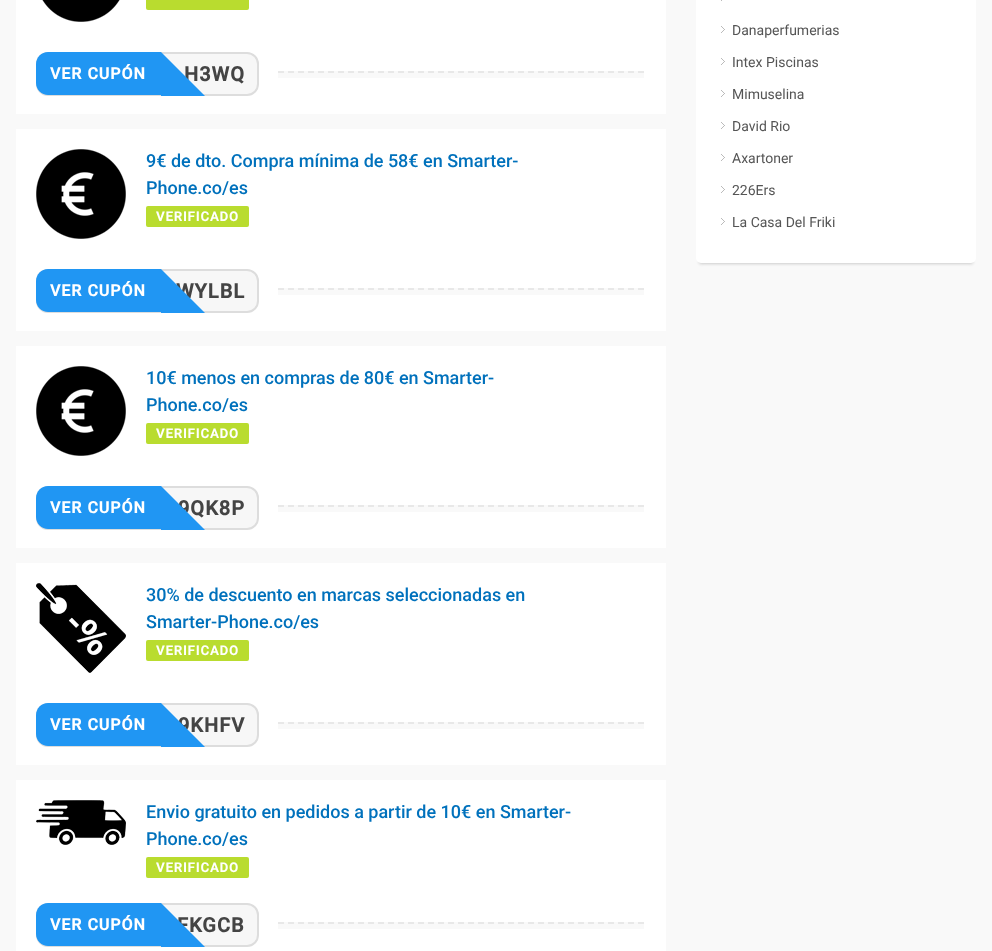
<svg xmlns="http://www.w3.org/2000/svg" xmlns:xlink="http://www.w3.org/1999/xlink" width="992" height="951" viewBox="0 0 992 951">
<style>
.cls-1{font:bold 16px Roboto;letter-spacing:1px;fill:#ffffff}
.cls-2{font:bold 20px Roboto;letter-spacing:1px;fill:#444444}
.cls-3{font:500 18px Roboto;fill:#0071bc}
.cls-4{font:bold 13px Roboto;letter-spacing:1px;fill:#ffffff}
.cls-5{font:14px Roboto;fill:#555555}
</style>
<rect width="100%" height="100%" fill="#f9f9f9"/>
<rect fill="#ffffff" x="16" y="0" width="650" height="114"/>
<image xlink:href="image0.png" x="42" y="0" width="78" height="22"/>
<rect fill="#b9dc2f" x="146" y="-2" width="103" height="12" rx="2"/>
<rect fill="#f7f7f7" stroke="#dddddd" stroke-width="2" x="37" y="53" width="221" height="42" rx="11"/>
<path fill="#2096f3" d="M48 52H161V95H48C41.5 95 36 89.5 36 83V64C36 57.5 41.5 52 48 52Z"/>
<rect fill="#f9f9f9" x="278" y="71" width="366" height="7"/>
<path fill="none" stroke="#e8e8e8" stroke-width="2" stroke-dasharray="6 4" d="M278 72H644"/>
<rect fill="#ffffff" x="16" y="129" width="650" height="202"/>
<image xlink:href="image1.png" x="36" y="149" width="90" height="90"/>
<rect fill="#b9dc2f" x="146" y="206" width="103" height="21" rx="2"/>
<rect fill="#f7f7f7" stroke="#dddddd" stroke-width="2" x="37" y="270" width="221" height="42" rx="11"/>
<path fill="#2096f3" d="M48 269H161V312H48C41.5 312 36 306.5 36 300V281C36 274.5 41.5 269 48 269Z"/>
<rect fill="#f9f9f9" x="278" y="288" width="366" height="7"/>
<path fill="none" stroke="#e8e8e8" stroke-width="2" stroke-dasharray="6 4" d="M278 289H644"/>
<rect fill="#ffffff" x="16" y="346" width="650" height="202"/>
<image xlink:href="image1.png" x="36" y="366" width="90" height="90"/>
<rect fill="#b9dc2f" x="146" y="423" width="103" height="21" rx="2"/>
<rect fill="#f7f7f7" stroke="#dddddd" stroke-width="2" x="37" y="487" width="221" height="42" rx="11"/>
<path fill="#2096f3" d="M48 486H161V529H48C41.5 529 36 523.5 36 517V498C36 491.5 41.5 486 48 486Z"/>
<rect fill="#f9f9f9" x="278" y="505" width="366" height="7"/>
<path fill="none" stroke="#e8e8e8" stroke-width="2" stroke-dasharray="6 4" d="M278 506H644"/>
<rect fill="#ffffff" x="16" y="563" width="650" height="202"/>
<image xlink:href="image2.png" x="36" y="583" width="90" height="90"/>
<rect fill="#b9dc2f" x="146" y="640" width="103" height="21" rx="2"/>
<rect fill="#f7f7f7" stroke="#dddddd" stroke-width="2" x="37" y="704" width="221" height="42" rx="11"/>
<path fill="#2096f3" d="M48 703H161V746H48C41.5 746 36 740.5 36 734V715C36 708.5 41.5 703 48 703Z"/>
<rect fill="#f9f9f9" x="278" y="722" width="366" height="7"/>
<path fill="none" stroke="#e8e8e8" stroke-width="2" stroke-dasharray="6 4" d="M278 723H644"/>
<rect fill="#ffffff" x="16" y="780" width="650" height="171"/>
<image xlink:href="image3.png" x="36" y="800" width="90" height="45"/>
<rect fill="#b9dc2f" x="146" y="857" width="103" height="21" rx="2"/>
<rect fill="#f7f7f7" stroke="#dddddd" stroke-width="2" x="37" y="904" width="221" height="42" rx="11"/>
<path fill="#2096f3" d="M48 903H161V946H48C41.5 946 36 940.5 36 934V915C36 908.5 41.5 903 48 903Z"/>
<rect fill="#f9f9f9" x="278" y="922" width="366" height="7"/>
<path fill="none" stroke="#e8e8e8" stroke-width="2" stroke-dasharray="6 4" d="M278 923H644"/>
<rect fill="#cccccc" filter="blur(1.5px)" x="699" y="-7" width="274" height="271" rx="2"/>
<rect fill="#ffffff" x="696" y="-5" width="280" height="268" rx="5"/>
<rect fill="#bbbbbb" x="721" y="0" width="1" height="1"/>
<image xlink:href="image4.png" x="721" y="26" width="4" height="7"/>
<image xlink:href="image4.png" x="721" y="58" width="4" height="7"/>
<image xlink:href="image4.png" x="721" y="90" width="4" height="7"/>
<image xlink:href="image4.png" x="721" y="122" width="4" height="7"/>
<image xlink:href="image4.png" x="721" y="154" width="4" height="7"/>
<image xlink:href="image4.png" x="721" y="186" width="4" height="7"/>
<image xlink:href="image4.png" x="721" y="218" width="4" height="7"/>
<text class="cls-1" x="50" y="79">VER CUPÓN</text>
<text class="cls-2" x="184" y="81">H3WQ</text>
<path fill="#2096f3" d="M161 96V52L205 96Z"/>
<text class="cls-3"><tspan x="146" y="167">9€ de dto. Compra mínima de 58€ en Smarter-</tspan><tspan x="146" y="194">Phone.co/es</tspan></text>
<text class="cls-4" x="156" y="221">VERIFICADO</text>
<text class="cls-1" x="50" y="296">VER CUPÓN</text>
<text class="cls-2" x="176" y="298">WYLBL</text>
<path fill="#2096f3" d="M161 313V269L205 313Z"/>
<text class="cls-3"><tspan x="146" y="384">10€ menos en compras de 80€ en Smarter-</tspan><tspan x="146" y="411">Phone.co/es</tspan></text>
<text class="cls-4" x="156" y="438">VERIFICADO</text>
<text class="cls-1" x="50" y="513">VER CUPÓN</text>
<text class="cls-2" x="178" y="515">9QK8P</text>
<path fill="#2096f3" d="M161 530V486L205 530Z"/>
<text class="cls-3"><tspan x="146" y="601">30% de descuento en marcas seleccionadas en</tspan><tspan x="146" y="628">Smarter-Phone.co/es</tspan></text>
<text class="cls-4" x="156" y="655">VERIFICADO</text>
<text class="cls-1" x="50" y="730">VER CUPÓN</text>
<text class="cls-2" x="178" y="732">9KHFV</text>
<path fill="#2096f3" d="M161 747V703L205 747Z"/>
<text class="cls-3"><tspan x="146" y="818">Envio gratuito en pedidos a partir de 10€ en Smarter-</tspan><tspan x="146" y="845">Phone.co/es</tspan></text>
<text class="cls-4" x="156" y="872">VERIFICADO</text>
<text class="cls-1" x="50" y="930">VER CUPÓN</text>
<text class="cls-2" x="177" y="932">FKGCB</text>
<path fill="#2096f3" d="M161 947V903L205 947Z"/>
<text class="cls-5" x="732" y="35">Danaperfumerias</text>
<text class="cls-5" x="732" y="67">Intex Piscinas</text>
<text class="cls-5" x="732" y="99">Mimuselina</text>
<text class="cls-5" x="732" y="131">David Rio</text>
<text class="cls-5" x="732" y="163">Axartoner</text>
<text class="cls-5" x="732" y="195">226Ers</text>
<text class="cls-5" x="732" y="227">La Casa Del Friki</text>
</svg>
